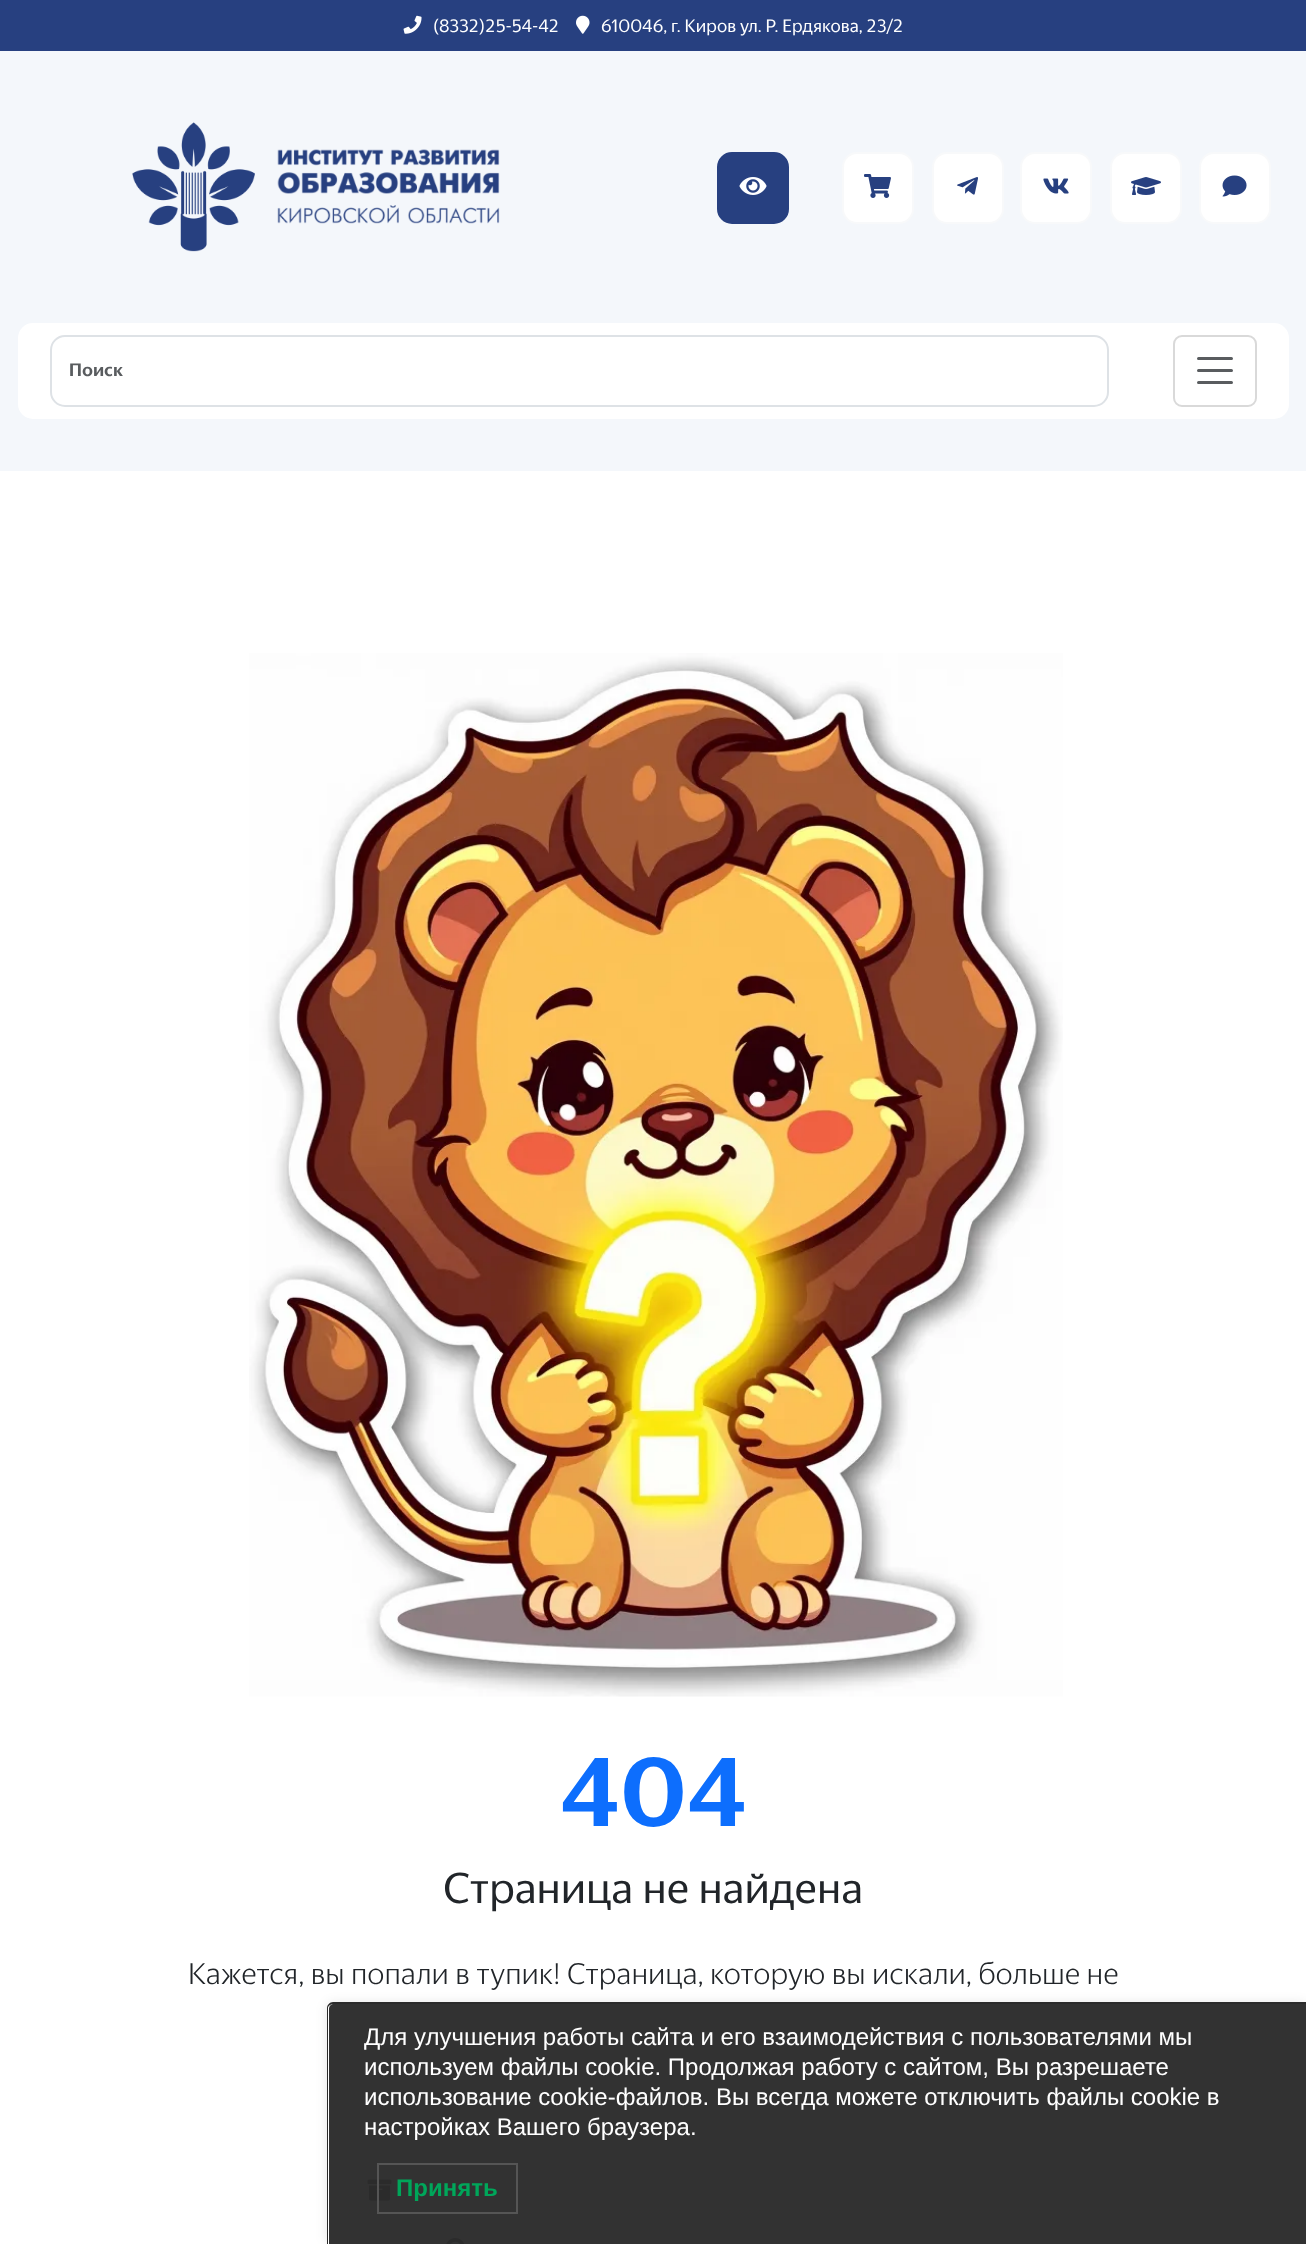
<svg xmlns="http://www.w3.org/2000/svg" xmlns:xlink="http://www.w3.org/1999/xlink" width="1306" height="2244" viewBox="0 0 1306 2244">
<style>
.cls-1{font:18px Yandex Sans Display;fill:#ffffff}
.cls-2{font:bold 18px Yandex Sans Display;fill:#595c5f}
.cls-3{font:bold 98px Yandex Sans Display;fill:#0d6efd}
.cls-4{font:43.5px Yandex Sans Display;fill:#212529}
.cls-5{font:300 30px Yandex Sans Display;fill:#212529}
.cls-6{font:24px Liberation Sans;fill:#ffffff}
.cls-7{font:bold 24px Liberation Sans;fill:#00a65a}
</style>
<defs>
<clipPath id="clip1"><path d="M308 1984H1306V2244H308ZM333 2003H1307V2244H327V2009C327 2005.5 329.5 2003 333 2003Z" clip-rule="evenodd"/></clipPath>
</defs>
<rect width="100%" height="100%" fill="#ffffff"/>
<rect fill="#f4f7fb" x="0" y="51" width="1306" height="420"/>
<rect fill="#274080" x="0" y="0" width="1306" height="51"/>
<image xlink:href="image0.png" x="403" y="15" width="19" height="19"/>
<image xlink:href="image1.png" x="576" y="15" width="14" height="19"/>
<image xlink:href="image2.png" x="132" y="122" width="368" height="130"/>
<rect fill="#274080" stroke="#274080" stroke-width="2" x="718" y="153" width="70" height="70" rx="14"/>
<image xlink:href="image3.png" x="739" y="177" width="28" height="18"/>
<rect fill="#ffffff" stroke="#f8f9fa" stroke-width="2" x="843" y="153" width="70" height="70" rx="14"/>
<image xlink:href="image4.png" x="864" y="174" width="27" height="24"/>
<rect fill="#ffffff" stroke="#f8f9fa" stroke-width="2" x="933" y="153" width="70" height="70" rx="14"/>
<image xlink:href="image5.png" x="957" y="177" width="21" height="18"/>
<rect fill="#ffffff" stroke="#f8f9fa" stroke-width="2" x="1021" y="153" width="70" height="70" rx="14"/>
<image xlink:href="image6.png" x="1043" y="178" width="26" height="16"/>
<rect fill="#ffffff" stroke="#f8f9fa" stroke-width="2" x="1111" y="153" width="70" height="70" rx="14"/>
<image xlink:href="image7.png" x="1131" y="177" width="30" height="18"/>
<rect fill="#ffffff" stroke="#f8f9fa" stroke-width="2" x="1200" y="153" width="70" height="70" rx="14"/>
<image xlink:href="image8.png" x="1222" y="175" width="25" height="22"/>
<rect fill="#ffffff" x="18" y="323" width="1271" height="96" rx="15"/>
<rect fill="none" stroke="#dee2e6" stroke-width="2" x="51" y="336" width="1057" height="70" rx="14"/>
<rect fill="none" stroke="#d9d9d9" stroke-width="2" x="1174" y="336" width="82" height="70" rx="8"/>
<path fill="none" stroke="#595c5f" stroke-width="3" stroke-linecap="round" d="M1198.5 358.5H1231.5M1198.5 370.5H1231.5M1198.5 382.5H1231.5"/>
<image xlink:href="image9.png" x="249" y="653" width="814" height="1044"/>
<image xlink:href="image10.png" x="367" y="2179" width="25" height="22"/>
<image xlink:href="image11.png" x="446" y="2238" width="19" height="6"/>
<g clip-path="url(#clip1)">
<rect fill="#000000" fill-opacity="0.1" filter="blur(6px)" x="327" y="2003" width="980" height="241" rx="6"/>
</g>
<path fill="#2b2b2b" fill-opacity="0.97" d="M334 2004H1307V2244H329V2009C329 2006 331 2004 334 2004Z"/>
<path fill="#2b2b2b" fill-rule="evenodd" d="M333 2002H1306V2244H327V2008C327 2005 330 2002 333 2002ZM333 2004H1306V2244H328V2008C328 2006 331 2004 333 2004Z"/>
<rect fill="none" stroke="#555555" stroke-width="2" x="378" y="2164" width="139" height="49"/>
<text class="cls-1" x="433" y="32">(8332)25-54-42</text>
<text class="cls-1" x="601" y="32">610046, г. Киров ул. Р. Ердякова, 23/2</text>
<text class="cls-2" x="69" y="376">Поиск</text>
<text class="cls-3" x="560" y="1826">404</text>
<text class="cls-4" x="443" y="1903">Страница не найдена</text>
<text class="cls-5" x="188" y="1984">Кажется, вы попали в тупик! Страница, которую вы искали, больше не</text>
<text class="cls-6"><tspan x="364" y="2045">Для улучшения работы сайта и его взаимодействия с пользователями мы</tspan><tspan x="364" y="2075">используем файлы cookie. Продолжая работу с сайтом, Вы разрешаете</tspan><tspan x="364" y="2105">использование cookie-файлов. Вы всегда можете отключить файлы cookie в</tspan><tspan x="364" y="2135">настройках Вашего браузера.</tspan></text>
<text class="cls-7" x="396" y="2196">Принять</text>
</svg>
